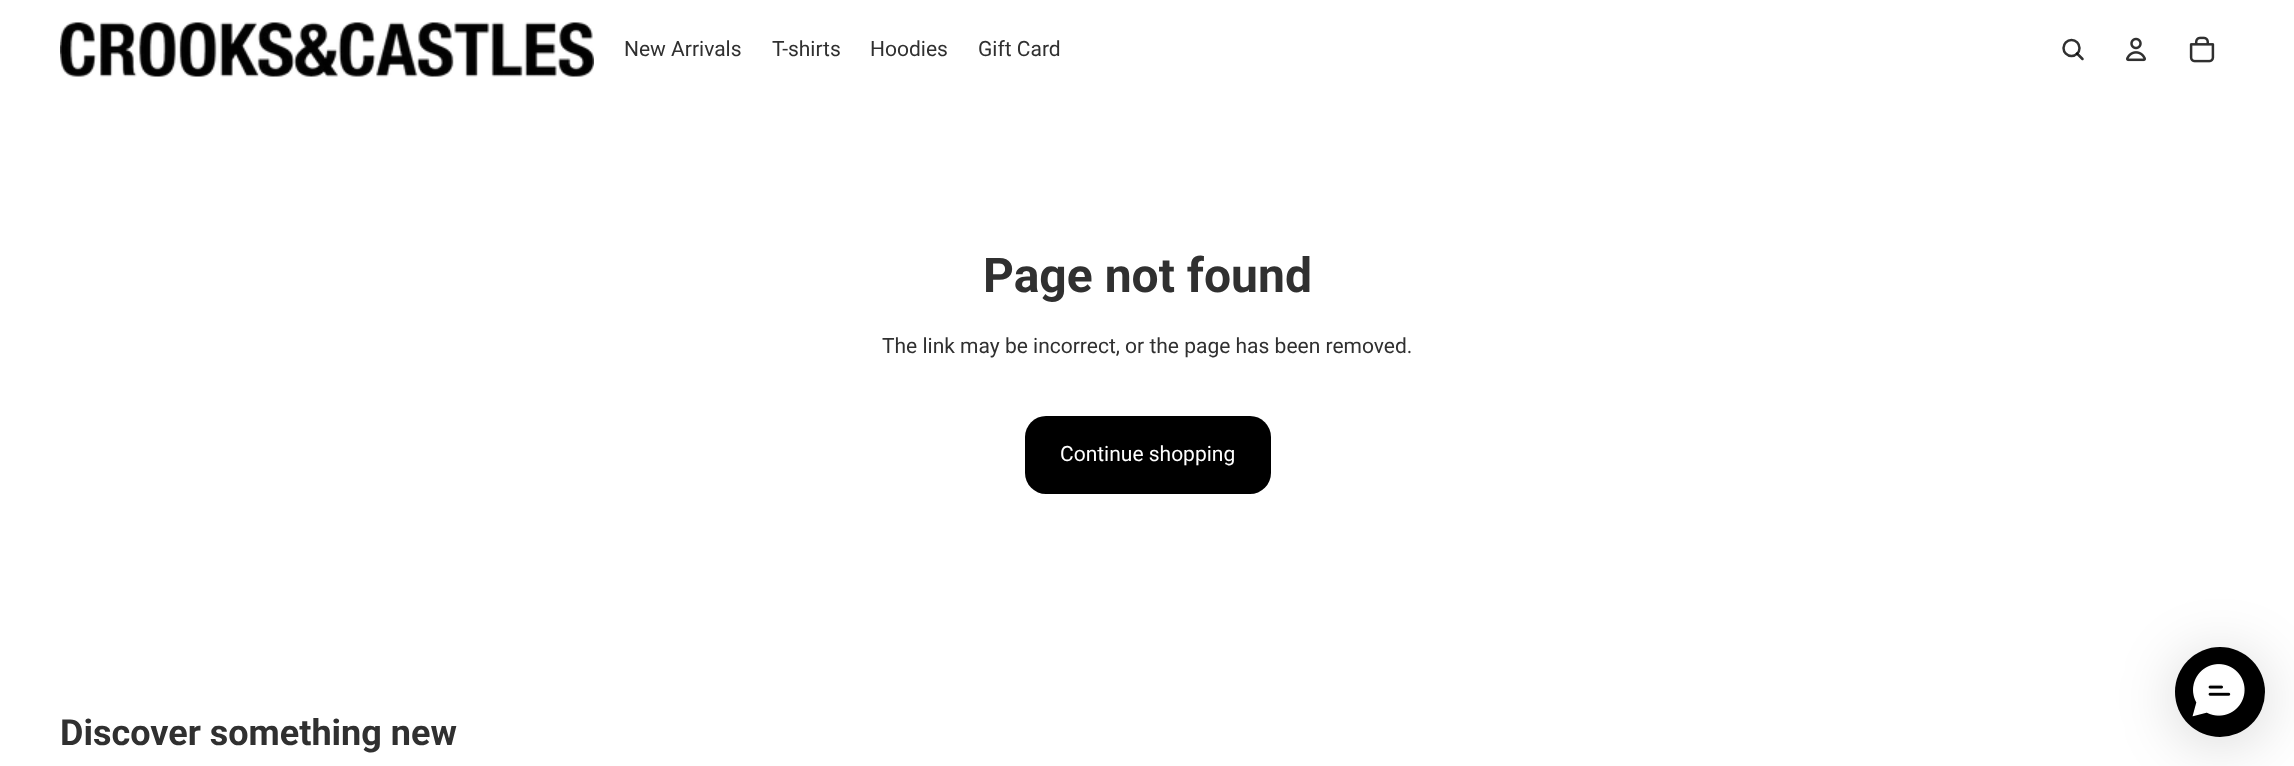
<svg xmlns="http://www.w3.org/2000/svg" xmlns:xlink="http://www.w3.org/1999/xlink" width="2294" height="766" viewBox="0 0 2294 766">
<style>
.cls-1{font:21px Roboto;fill:#303030}
.cls-2{font:bold 48px Roboto;fill:#303030}
.cls-3{font:21px Roboto;fill:#ffffff}
.cls-4{font:bold 36px Roboto;fill:#303030}
</style>
<rect width="100%" height="100%" fill="#ffffff"/>
<image xlink:href="image0.png" x="60" y="22" width="534" height="55"/>
<circle fill="none" stroke="#303030" stroke-width="2.5" cx="2071.5" cy="48" r="8"/>
<path fill="none" stroke="#000000" stroke-opacity="0.81" stroke-width="2.5" stroke-linecap="round" stroke-linejoin="round" d="M2077 53.5L2082.5 59"/>
<image xlink:href="image1.png" x="2126" y="37" width="20" height="25"/>
<image xlink:href="image2.png" x="2189" y="36" width="26" height="27"/>
<rect fill="#000000" x="1025" y="416" width="246" height="78" rx="21"/>
<rect fill="#000000" fill-opacity="0.16" filter="blur(30px)" x="2175" y="654" width="90" height="90" rx="45"/>
<circle fill="#000000" cx="2220" cy="692" r="45"/>
<image xlink:href="image3.png" x="2192" y="664" width="53" height="53"/>
<text class="cls-1" x="624" y="56">New Arrivals</text>
<text class="cls-1" x="772" y="56">T-shirts</text>
<text class="cls-1" x="870" y="56">Hoodies</text>
<text class="cls-1" x="978" y="56">Gift Card</text>
<text class="cls-2" x="983" y="292">Page not found</text>
<text class="cls-1" x="882" y="353">The link may be incorrect, or the page has been removed.</text>
<text class="cls-3" x="1060" y="461">Continue shopping</text>
<text class="cls-4" x="60" y="745">Discover something new</text>
</svg>
